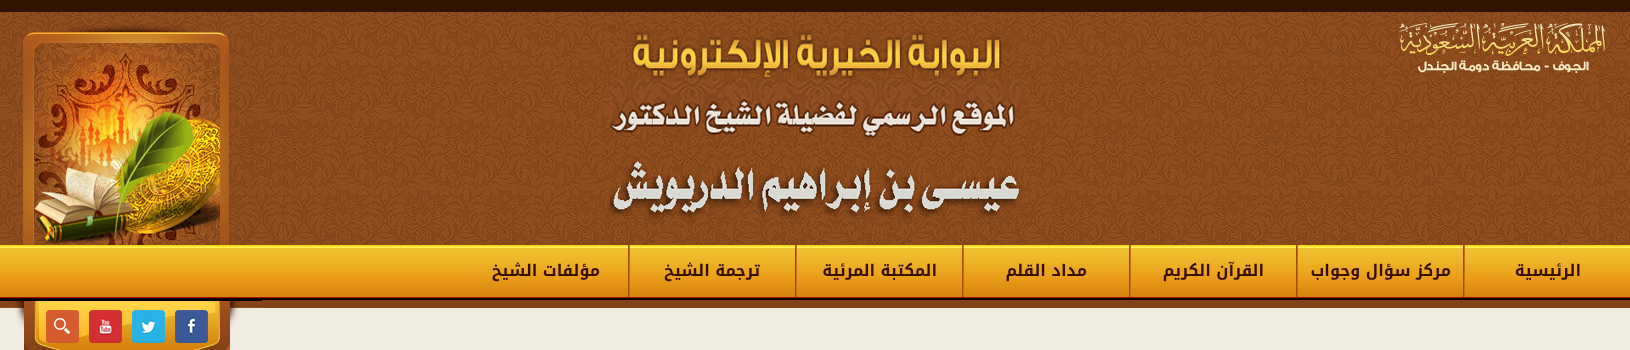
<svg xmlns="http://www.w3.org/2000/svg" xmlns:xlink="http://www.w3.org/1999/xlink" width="1630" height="350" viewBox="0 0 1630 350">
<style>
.cls-1{font:bold 16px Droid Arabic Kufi;direction:rtl;fill:#360f03}
</style>
<rect width="100%" height="100%" fill="#efece2"/>
<image xlink:href="image0.png" x="0" y="0" width="1630" height="245"/>
<image xlink:href="image1.png" x="1342" y="12" width="288" height="233"/>
<image xlink:href="image2.png" x="601" y="12" width="428" height="233"/>
<image xlink:href="image3.png" x="0" y="12" width="284" height="233"/>
<image xlink:href="image4.png" x="0" y="245" width="1630" height="55"/>
<rect fill="#c86b1f" x="1464" y="245" width="1" height="52"/>
<rect fill="#a14c05" x="1463" y="245" width="1" height="52"/>
<rect fill="#c86b1f" x="1297" y="245" width="1" height="52"/>
<rect fill="#a14c05" x="1296" y="245" width="1" height="52"/>
<rect fill="#c86b1f" x="1130" y="245" width="1" height="52"/>
<rect fill="#a14c05" x="1129" y="245" width="1" height="52"/>
<rect fill="#c86b1f" x="963" y="245" width="1" height="52"/>
<rect fill="#a14c05" x="962" y="245" width="1" height="52"/>
<rect fill="#c86b1f" x="796" y="245" width="1" height="52"/>
<rect fill="#a14c05" x="795" y="245" width="1" height="52"/>
<rect fill="#c86b1f" x="629" y="245" width="1" height="52"/>
<rect fill="#a14c05" x="628" y="245" width="1" height="52"/>
<rect fill="#844217" x="262" y="300" width="1368" height="8"/>
<image xlink:href="image5.png" x="0" y="300" width="262" height="50"/>
<image xlink:href="image6.png" x="175" y="310" width="33" height="33"/>
<image xlink:href="image7.png" x="132" y="310" width="33" height="33"/>
<image xlink:href="image8.png" x="89" y="310" width="33" height="33"/>
<image xlink:href="image9.png" x="46" y="310" width="33" height="33"/>
<text class="cls-1" x="1581" y="276">الرئيسية</text>
<text class="cls-1" x="1451" y="276">مركز سؤال وجواب</text>
<text class="cls-1" x="1264" y="276">القرآن الكريم</text>
<text class="cls-1" x="1087" y="276">مداد القلم</text>
<text class="cls-1" x="937" y="276">المكتبة المرئية</text>
<text class="cls-1" x="760" y="276">ترجمة الشيخ</text>
<text class="cls-1" x="600" y="276">مؤلفات الشيخ</text>
</svg>
